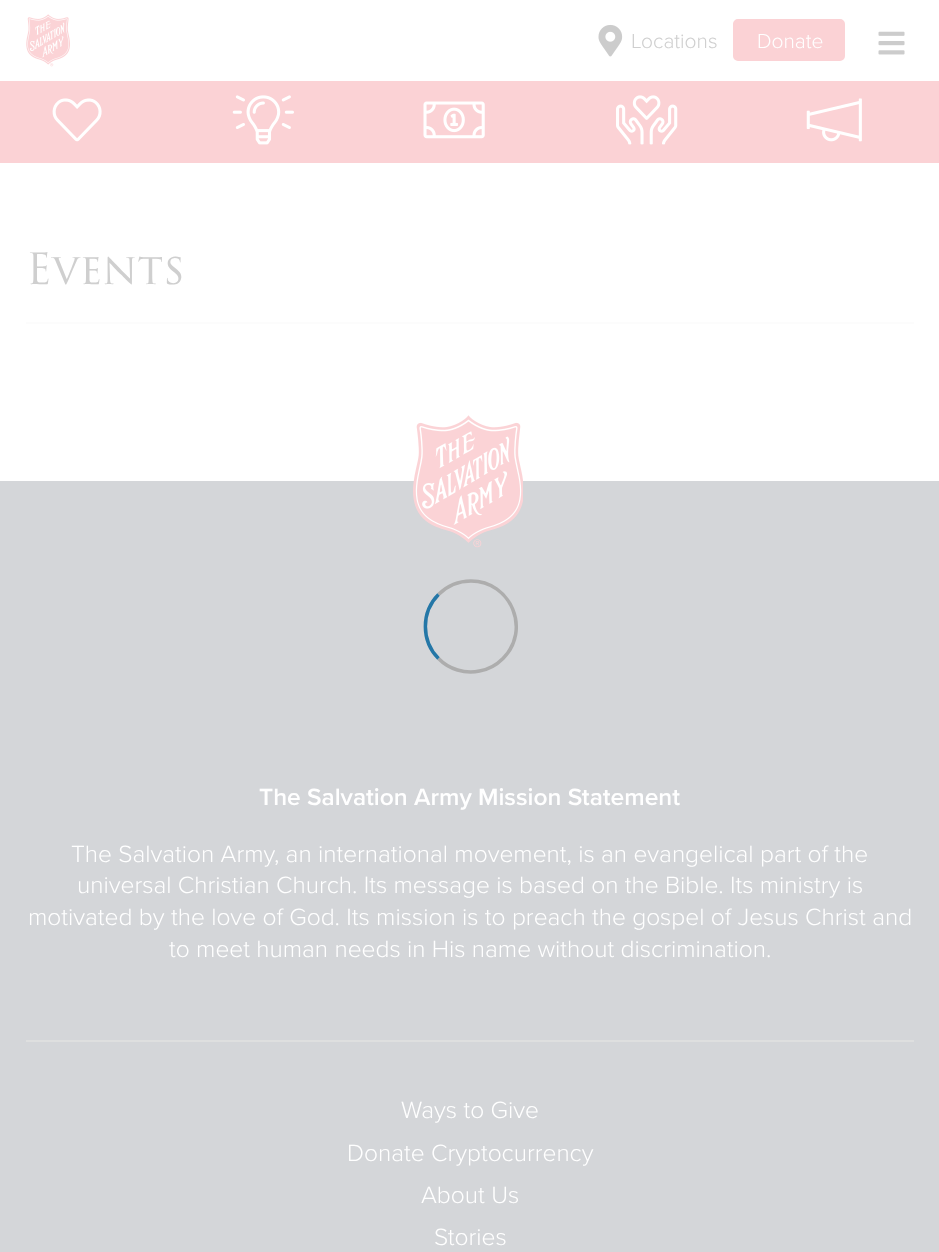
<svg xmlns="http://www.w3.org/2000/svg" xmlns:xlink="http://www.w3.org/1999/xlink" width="939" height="1252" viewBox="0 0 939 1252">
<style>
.cls-1{font:300 21px Proxima Nova;fill:#cfcfcf}
.cls-2{font:300 21px Proxima Nova;fill:#ffffff}
.cls-3{font:42px 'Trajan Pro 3';fill:#cfcfcf}
.cls-4{font:600 24.5px Proxima Nova;fill:#ffffff}
.cls-5{font:300 24.5px Proxima Nova;fill:#ffffff}
</style>
<rect width="100%" height="100%" fill="#ffffff"/>
<image xlink:href="image0.png" x="26" y="14" width="44" height="53"/>
<image xlink:href="image1.png" x="598" y="24" width="25" height="33"/>
<rect fill="#fbd2d5" stroke="#fbd2d5" stroke-width="2" x="734" y="20" width="110" height="40" rx="4"/>
<image xlink:href="image2.png" x="878" y="31" width="27" height="24"/>
<rect fill="#fbd2d5" x="0" y="81" width="939" height="82"/>
<image xlink:href="image3.png" x="52" y="98" width="50" height="44"/>
<image xlink:href="image4.png" x="232" y="95" width="62" height="50"/>
<image xlink:href="image5.png" x="423" y="101" width="62" height="38"/>
<image xlink:href="image6.png" x="616" y="95" width="62" height="50"/>
<image xlink:href="image7.png" x="806" y="98" width="56" height="44"/>
<rect fill="#fcfcfc" x="26" y="322" width="888" height="2"/>
<rect fill="#d4d6d9" x="0" y="481" width="939" height="771"/>
<path fill="none" stroke="#adadad" stroke-width="3.5" d="M438.5 594.5C447 586 459 581 471 581C511 581 531.5 630 503 658.5C496.5 665 488.5 669.5 479.5 671C465 674 449 669.5 438.5 658.5"/>
<path fill="none" stroke="#2477a7" stroke-width="3.5" d="M438.5 658.5C421 641 421 612 438.5 594.5"/>
<image xlink:href="image8.png" x="413" y="415" width="110" height="133"/>
<rect fill="#dedfdf" x="26" y="1040" width="888" height="2"/>
<text class="cls-1" x="631" y="48">Locations</text>
<text class="cls-2" x="757" y="48">Donate</text>
<text class="cls-3" x="26" y="284">Events</text>
<text class="cls-4" x="259" y="805">The Salvation Army Mission Statement</text>
<text class="cls-5" x="71" y="862">The Salvation Army, an international movement, is an evangelical part of the</text>
<text class="cls-5" x="77" y="893">universal Christian Church. Its message is based on the Bible. Its ministry is</text>
<text class="cls-5" x="28" y="925">motivated by the love of God. Its mission is to preach the gospel of Jesus Christ and</text>
<text class="cls-5" x="169" y="957">to meet human needs in His name without discrimination.</text>
<text class="cls-5" x="401" y="1118">Ways to Give</text>
<text class="cls-5" x="347" y="1161">Donate Cryptocurrency</text>
<text class="cls-5" x="421" y="1203">About Us</text>
<text class="cls-5" x="434" y="1245">Stories</text>
</svg>
